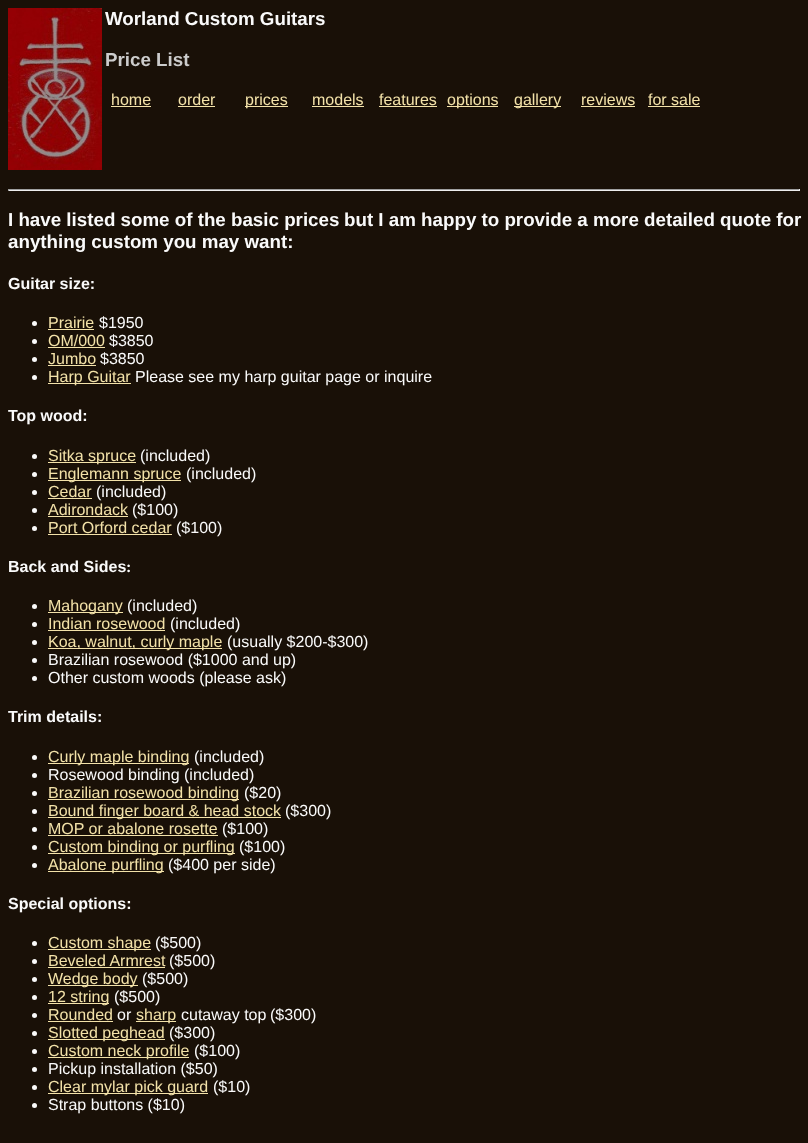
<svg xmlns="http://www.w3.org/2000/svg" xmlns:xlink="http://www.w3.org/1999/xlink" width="808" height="1143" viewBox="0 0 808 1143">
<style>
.cls-1{font:bold 18.75px Liberation Sans;fill:#fafafa}
.cls-2{font:bold 18.75px Liberation Sans;fill:#cccccc}
.cls-3{font:16px Liberation Sans;fill:#f3e2a9}
.cls-4{font:bold 16px Liberation Sans;fill:#fafafa}
.cls-5{font:16px Liberation Sans;fill:#fafafa}
.cls-6{font:bold 16px Liberation Serif;fill:#fafafa}
</style>
<rect width="100%" height="100%" fill="#191007"/>
<image xlink:href="image0.png" x="8" y="8" width="94" height="162"/>
<rect fill="#f3e2a9" x="111" y="106" width="40" height="1"/>
<rect fill="#f3e2a9" x="178" y="106" width="37" height="1"/>
<rect fill="#f3e2a9" x="245" y="106" width="43" height="1"/>
<rect fill="#f3e2a9" x="312" y="106" width="52" height="1"/>
<rect fill="#f3e2a9" x="379" y="106" width="58" height="1"/>
<rect fill="#f3e2a9" x="447" y="106" width="51" height="1"/>
<rect fill="#f3e2a9" x="514" y="106" width="47" height="1"/>
<rect fill="#f3e2a9" x="581" y="106" width="54" height="1"/>
<rect fill="#f3e2a9" x="648" y="106" width="52" height="1"/>
<rect fill="#9f9f9f" x="8" y="189" width="792" height="1"/>
<rect fill="#eeeeee" x="799" y="189" width="1" height="2"/>
<rect fill="#eeeeee" x="8" y="190" width="792" height="1"/>
<rect fill="#9f9f9f" x="8" y="189" width="1" height="2"/>
<circle fill="#fafafa" cx="34.5" cy="323.5" r="2.5"/>
<rect fill="#f3e2a9" x="48" y="329" width="46" height="1"/>
<circle fill="#fafafa" cx="34.5" cy="341.5" r="2.5"/>
<rect fill="#f3e2a9" x="48" y="347" width="57" height="1"/>
<circle fill="#fafafa" cx="34.5" cy="359.5" r="2.5"/>
<rect fill="#f3e2a9" x="48" y="365" width="48" height="1"/>
<circle fill="#fafafa" cx="34.5" cy="377.5" r="2.5"/>
<rect fill="#f3e2a9" x="48" y="383" width="83" height="1"/>
<circle fill="#fafafa" cx="34.5" cy="456.5" r="2.5"/>
<rect fill="#f3e2a9" x="48" y="462" width="88" height="1"/>
<circle fill="#fafafa" cx="34.5" cy="474.5" r="2.5"/>
<rect fill="#f3e2a9" x="48" y="480" width="133" height="1"/>
<circle fill="#fafafa" cx="34.5" cy="492.5" r="2.5"/>
<rect fill="#f3e2a9" x="48" y="498" width="44" height="1"/>
<circle fill="#fafafa" cx="34.5" cy="510.5" r="2.5"/>
<rect fill="#f3e2a9" x="48" y="516" width="80" height="1"/>
<circle fill="#fafafa" cx="34.5" cy="528.5" r="2.5"/>
<rect fill="#f3e2a9" x="48" y="534" width="124" height="1"/>
<circle fill="#fafafa" cx="34.5" cy="606.5" r="2.5"/>
<rect fill="#f3e2a9" x="48" y="612" width="75" height="1"/>
<circle fill="#fafafa" cx="34.5" cy="624.5" r="2.5"/>
<rect fill="#f3e2a9" x="48" y="630" width="117" height="1"/>
<circle fill="#fafafa" cx="34.5" cy="642.5" r="2.5"/>
<rect fill="#f3e2a9" x="48" y="648" width="174" height="1"/>
<circle fill="#fafafa" cx="34.5" cy="660.5" r="2.5"/>
<circle fill="#fafafa" cx="34.5" cy="678.5" r="2.5"/>
<circle fill="#fafafa" cx="34.5" cy="757.5" r="2.5"/>
<rect fill="#f3e2a9" x="48" y="763" width="141" height="1"/>
<circle fill="#fafafa" cx="34.5" cy="775.5" r="2.5"/>
<circle fill="#fafafa" cx="34.5" cy="793.5" r="2.5"/>
<rect fill="#f3e2a9" x="48" y="799" width="191" height="1"/>
<circle fill="#fafafa" cx="34.5" cy="811.5" r="2.5"/>
<rect fill="#f3e2a9" x="48" y="817" width="233" height="1"/>
<circle fill="#fafafa" cx="34.5" cy="829.5" r="2.5"/>
<rect fill="#f3e2a9" x="48" y="835" width="170" height="1"/>
<circle fill="#fafafa" cx="34.5" cy="847.5" r="2.5"/>
<rect fill="#f3e2a9" x="48" y="853" width="187" height="1"/>
<circle fill="#fafafa" cx="34.5" cy="865.5" r="2.5"/>
<rect fill="#f3e2a9" x="48" y="871" width="116" height="1"/>
<circle fill="#fafafa" cx="34.5" cy="943.5" r="2.5"/>
<rect fill="#f3e2a9" x="48" y="949" width="103" height="1"/>
<circle fill="#fafafa" cx="34.5" cy="961.5" r="2.5"/>
<rect fill="#f3e2a9" x="48" y="967" width="117" height="1"/>
<circle fill="#fafafa" cx="34.5" cy="979.5" r="2.5"/>
<rect fill="#f3e2a9" x="48" y="985" width="90" height="1"/>
<circle fill="#fafafa" cx="34.5" cy="997.5" r="2.5"/>
<rect fill="#f3e2a9" x="48" y="1003" width="61" height="1"/>
<circle fill="#fafafa" cx="34.5" cy="1015.5" r="2.5"/>
<rect fill="#f3e2a9" x="48" y="1021" width="65" height="1"/>
<rect fill="#f3e2a9" x="136" y="1021" width="40" height="1"/>
<circle fill="#fafafa" cx="34.5" cy="1033.5" r="2.5"/>
<rect fill="#f3e2a9" x="48" y="1039" width="117" height="1"/>
<circle fill="#fafafa" cx="34.5" cy="1051.5" r="2.5"/>
<rect fill="#f3e2a9" x="48" y="1057" width="141" height="1"/>
<circle fill="#fafafa" cx="34.5" cy="1069.5" r="2.5"/>
<circle fill="#fafafa" cx="34.5" cy="1087.5" r="2.5"/>
<rect fill="#f3e2a9" x="48" y="1093" width="160" height="1"/>
<circle fill="#fafafa" cx="34.5" cy="1105.5" r="2.5"/>
<text class="cls-1" x="105" y="25">Worland Custom Guitars</text>
<text class="cls-2" x="105" y="66">Price List</text>
<text class="cls-3" x="111" y="105">home</text>
<text class="cls-3" x="178" y="105">order</text>
<text class="cls-3" x="245" y="105">prices</text>
<text class="cls-3" x="312" y="105">models</text>
<text class="cls-3" x="379" y="105">features</text>
<text class="cls-3" x="447" y="105">options</text>
<text class="cls-3" x="514" y="105">gallery</text>
<text class="cls-3" x="581" y="105">reviews</text>
<text class="cls-3" x="648" y="105">for sale</text>
<text class="cls-1" x="8" y="226">I have listed some of the basic prices</text>
<text class="cls-1" x="344" y="226">but I am happy to provide a more detailed quote for</text>
<text class="cls-1" x="8" y="248">anything custom you may want:</text>
<text class="cls-4" x="8" y="289">Guitar size:</text>
<text class="cls-3" x="48" y="328">Prairie</text>
<text class="cls-5" x="99" y="328">$1950</text>
<text class="cls-3" x="48" y="346">OM/000</text>
<text class="cls-5" x="109" y="346">$3850</text>
<text class="cls-3" x="48" y="364">Jumbo</text>
<text class="cls-5" x="100" y="364">$3850</text>
<text class="cls-3" x="48" y="382">Harp Guitar</text>
<text class="cls-5" x="135" y="382">Please see my harp guitar page or inquire</text>
<text class="cls-4" x="8" y="421">Top wood:</text>
<text class="cls-3" x="48" y="461">Sitka spruce</text>
<text class="cls-5" x="140" y="461">(included)</text>
<text class="cls-3" x="48" y="479">Englemann spruce</text>
<text class="cls-5" x="186" y="479">(included)</text>
<text class="cls-3" x="48" y="497">Cedar</text>
<text class="cls-5" x="96" y="497">(included)</text>
<text class="cls-3" x="48" y="515">Adirondack</text>
<text class="cls-5" x="132" y="515">($100)</text>
<text class="cls-3" x="48" y="533">Port Orford cedar</text>
<text class="cls-5" x="176" y="533">($100)</text>
<text class="cls-4" x="8" y="572">Back and Sides</text>
<text class="cls-6" x="126" y="572">:</text>
<text class="cls-3" x="48" y="611">Mahogany</text>
<text class="cls-5" x="127" y="611">(included)</text>
<text class="cls-3" x="48" y="629">Indian rosewood</text>
<text class="cls-5" x="170" y="629">(included)</text>
<text class="cls-3" x="48" y="647">Koa, walnut, curly maple</text>
<text class="cls-5" x="227" y="647">(usually $200-$300)</text>
<text class="cls-5"><tspan x="48" y="665">Brazilian rosewood ($1000 and up)</tspan><tspan x="48" y="683">Other custom woods (please ask)</tspan></text>
<text class="cls-4" x="8" y="722">Trim details:</text>
<text class="cls-3" x="48" y="762">Curly maple binding</text>
<text class="cls-5" x="194" y="762">(included)</text>
<text class="cls-5" x="48" y="780">Rosewood binding</text>
<text class="cls-5" x="184" y="780">(included)</text>
<text class="cls-3" x="48" y="798">Brazilian rosewood binding</text>
<text class="cls-5" x="244" y="798">($20)</text>
<text class="cls-3" x="48" y="816">Bound finger board &amp; head stock</text>
<text class="cls-5" x="285" y="816">($300)</text>
<text class="cls-3" x="48" y="834">MOP or abalone rosette</text>
<text class="cls-5" x="222" y="834">($100)</text>
<text class="cls-3" x="48" y="852">Custom binding or purfling</text>
<text class="cls-5" x="239" y="852">($100)</text>
<text class="cls-3" x="48" y="870">Abalone purfling</text>
<text class="cls-5" x="168" y="870">($400 per side)</text>
<text class="cls-4" x="8" y="909">Special options:</text>
<text class="cls-3" x="48" y="948">Custom shape</text>
<text class="cls-5" x="155" y="948">($500)</text>
<text class="cls-3" x="48" y="966">Beveled Armrest</text>
<text class="cls-5" x="169" y="966">($500)</text>
<text class="cls-3" x="48" y="984">Wedge body</text>
<text class="cls-5" x="142" y="984">($500)</text>
<text class="cls-3" x="48" y="1002">12 string</text>
<text class="cls-5" x="114" y="1002">($500)</text>
<text class="cls-3" x="48" y="1020">Rounded</text>
<text class="cls-5" x="117" y="1020">or</text>
<text class="cls-3" x="136" y="1020">sharp</text>
<text class="cls-5" x="181" y="1020">cutaway top</text>
<text class="cls-5" x="270" y="1020">($300)</text>
<text class="cls-3" x="48" y="1038">Slotted peghead</text>
<text class="cls-5" x="169" y="1038">($300)</text>
<text class="cls-3" x="48" y="1056">Custom neck profile</text>
<text class="cls-5" x="194" y="1056">($100)</text>
<text class="cls-5" x="48" y="1074">Pickup installation ($50)</text>
<text class="cls-3" x="48" y="1092">Clear mylar pick guard</text>
<text class="cls-5" x="213" y="1092">($10)</text>
<text class="cls-5" x="48" y="1110">Strap buttons ($10)</text>
</svg>
